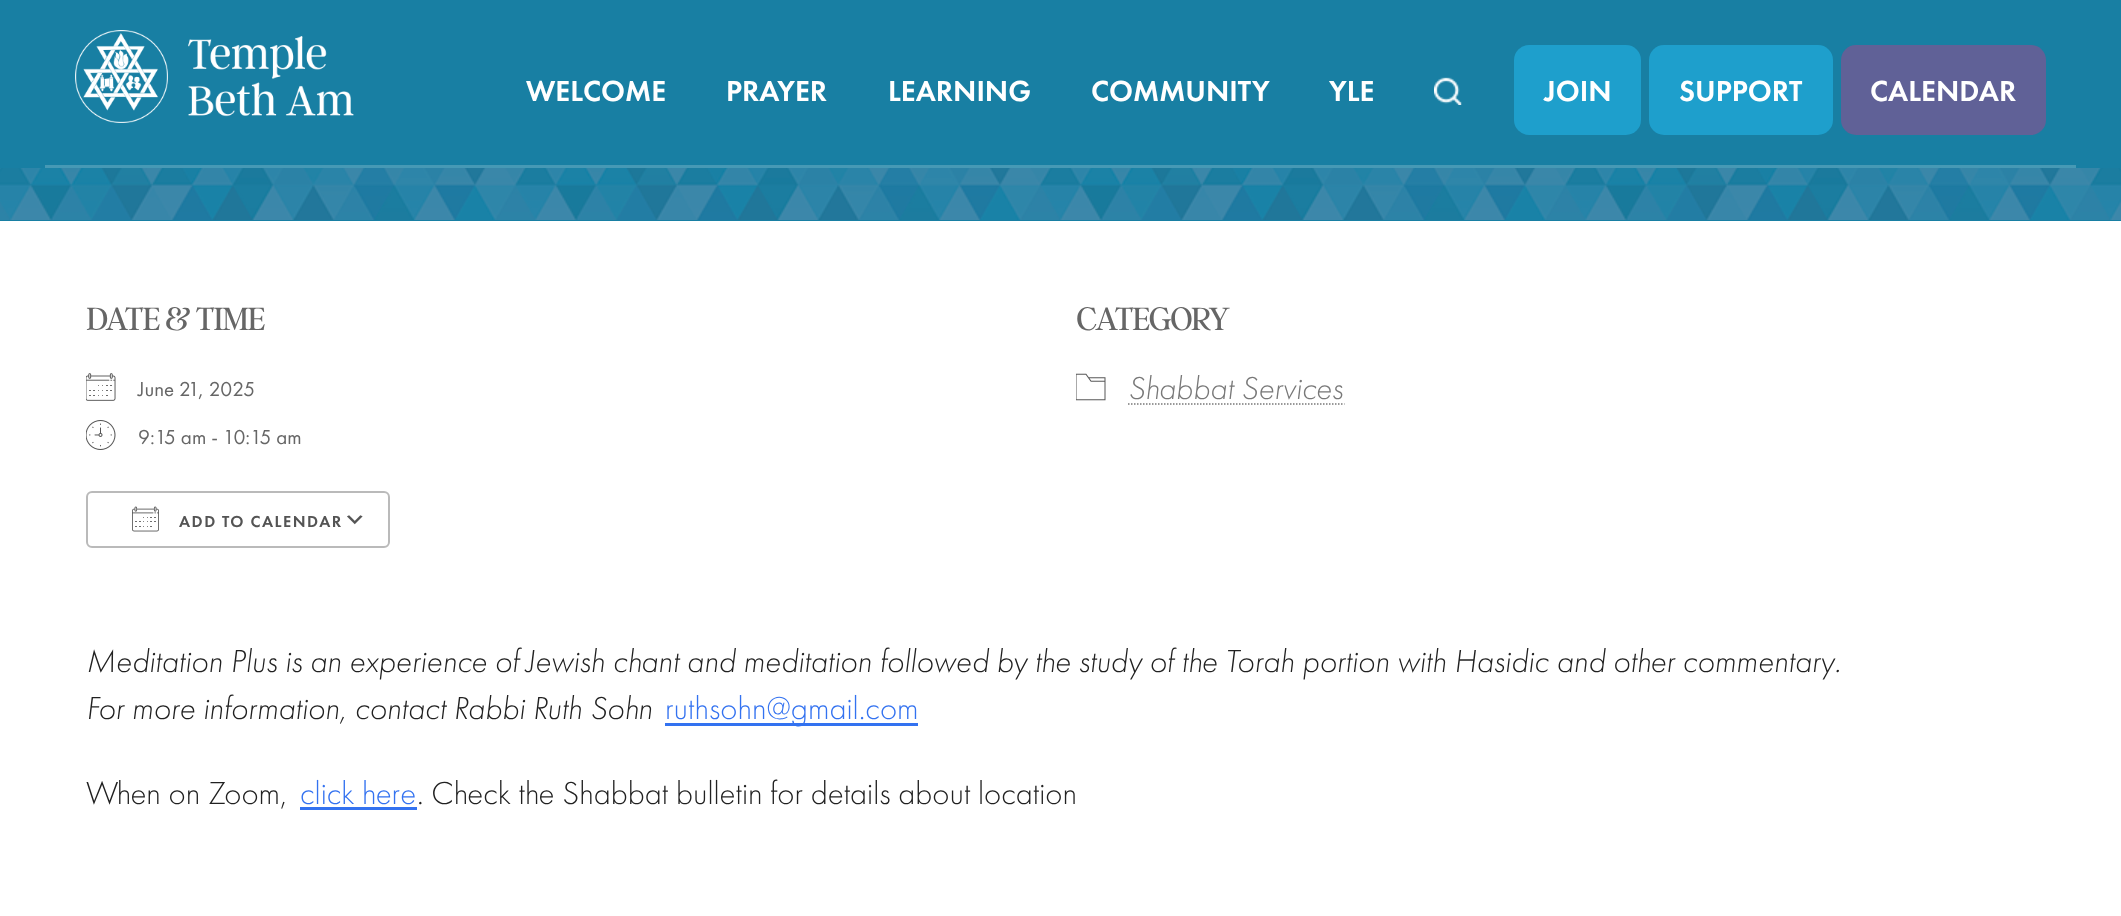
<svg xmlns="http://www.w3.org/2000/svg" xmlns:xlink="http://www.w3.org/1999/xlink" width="2121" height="916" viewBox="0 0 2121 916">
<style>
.cls-1{font:500 30px Futura PT;fill:#ffffff}
.cls-2{font:300 36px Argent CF;letter-spacing:-1.5px;fill:#666666}
.cls-3{font:21px Futura PT;fill:#666666}
.cls-4{font:500 16.5px Futura PT;letter-spacing:1.5px;fill:#545454}
.cls-5{font:italic 300 33px Futura PT;fill:#787878}
.cls-6{font:italic 300 33px Futura PT;fill:#212121}
.cls-7{font:300 33px Futura PT;fill:#3372f0}
.cls-8{font:300 33px Futura PT;fill:#212121}
</style>
<rect width="100%" height="100%" fill="#187fa3"/>
<rect fill="#4699b5" x="45" y="165" width="2031" height="3"/>
<image xlink:href="image0.png" x="75" y="30" width="279" height="93"/>
<image xlink:href="image1.png" x="1434" y="77" width="28" height="28"/>
<rect fill="#1e9fcc" x="1514" y="45" width="127" height="90" rx="15"/>
<rect fill="#1e9fcc" x="1649" y="45" width="184" height="90" rx="15"/>
<rect fill="#606197" x="1841" y="45" width="205" height="90" rx="15"/>
<image xlink:href="image2.png" x="0" y="168" width="2121" height="52"/>
<rect fill="#ffffff" x="0" y="221" width="2121" height="695"/>
<image xlink:href="image3.png" x="86" y="373" width="30" height="28"/>
<image xlink:href="image4.png" x="86" y="420" width="30" height="30"/>
<image xlink:href="image5.png" x="347" y="515" width="16" height="10"/>
<rect fill="none" stroke="#bababa" stroke-width="2" x="87" y="492" width="302" height="55" rx="5"/>
<image xlink:href="image6.png" x="132" y="506" width="27" height="26"/>
<image xlink:href="image7.png" x="1076" y="373" width="30" height="28"/>
<path fill="none" stroke="#787878" stroke-width="1.5" stroke-dasharray="1.5 1.5" d="M1128 404H1344.5"/>
<rect fill="#3372f0" x="665" y="723" width="253" height="3"/>
<rect fill="#3372f0" x="300" y="807" width="117" height="3"/>
<text class="cls-1" x="526" y="101">WELCOME</text>
<text class="cls-1" x="726" y="101">PRAYER</text>
<text class="cls-1" x="888" y="101">LEARNING</text>
<text class="cls-1" x="1091" y="101">COMMUNITY</text>
<text class="cls-1" x="1329" y="101">YLE</text>
<text class="cls-1" x="1544" y="101">JOIN</text>
<text class="cls-1" x="1679" y="101">SUPPORT</text>
<text class="cls-1" x="1870" y="101">CALENDAR</text>
<text class="cls-2" x="86" y="330">DATE &amp; TIME</text>
<text class="cls-3" x="138" y="396">June 21, 2025</text>
<text class="cls-3" x="138" y="444">9:15 am - 10:15 am</text>
<text class="cls-4" x="179" y="527">ADD TO CALENDAR</text>
<text class="cls-2" x="1076" y="330">CATEGORY</text>
<text class="cls-5" x="1128" y="399">Shabbat Services</text>
<text class="cls-6"><tspan x="86" y="672">Meditation Plus is an experience of Jewish chant and meditation followed by the study of the Torah portion with Hasidic and other commentary.</tspan><tspan x="86" y="719">For more information, contact Rabbi Ruth Sohn</tspan></text>
<text class="cls-7" x="665" y="719">ruthsohn@gmail.com</text>
<text class="cls-8" x="86" y="804">When on Zoom,</text>
<text class="cls-7" x="300" y="804">click here</text>
<text class="cls-8" x="417" y="804">. Check the Shabbat bulletin for details about location</text>
</svg>
